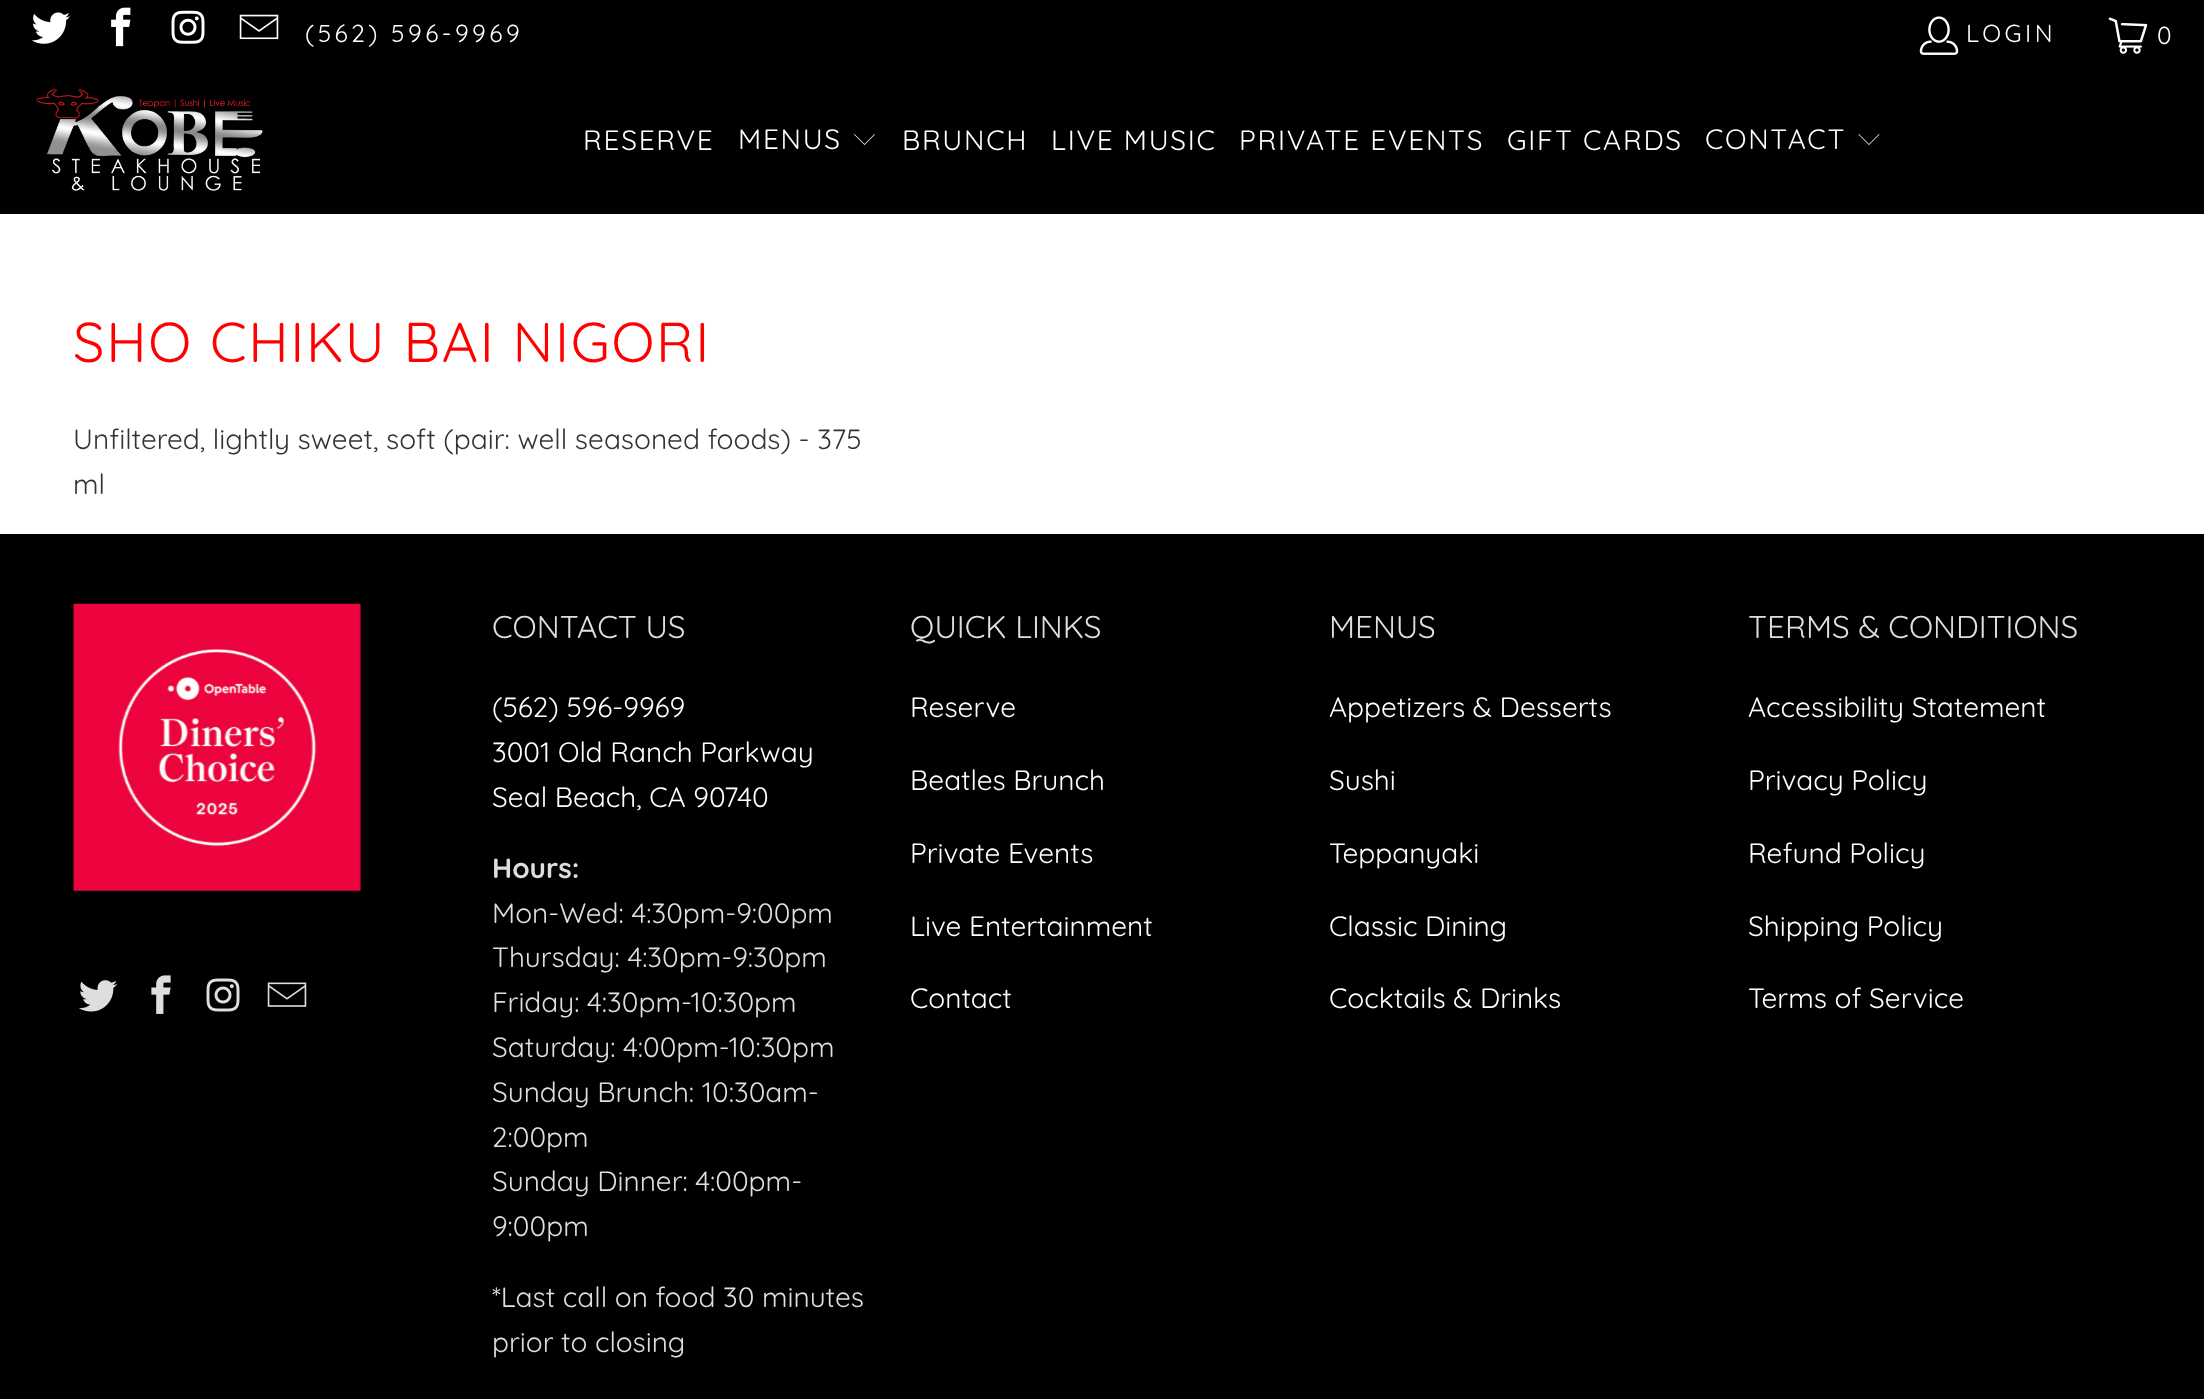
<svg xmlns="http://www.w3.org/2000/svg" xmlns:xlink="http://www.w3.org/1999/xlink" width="2204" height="1399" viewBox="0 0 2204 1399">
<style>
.cls-1{font:24.5px Quicksand;letter-spacing:3.5px;fill:#ffffff}
.cls-2{font:28px Quicksand;letter-spacing:1.75px;fill:#ffffff}
.cls-3{font:56px Quicksand;letter-spacing:1.75px;fill:#ff0000}
.cls-4{font:28px Quicksand;fill:#333333}
.cls-5{font:31.5px Quicksand;fill:#dedede}
.cls-6{font:28px Quicksand;fill:#ffffff}
.cls-7{font:bold 28px Quicksand;fill:#dedede}
.cls-8{font:28px Quicksand;fill:#dedede}
</style>
<rect width="100%" height="100%" fill="#ffffff"/>
<rect fill="#000000" x="0" y="0" width="2204" height="214"/>
<image xlink:href="image0.png" x="31" y="12" width="39" height="32"/>
<image xlink:href="image1.png" x="111" y="7" width="20" height="40"/>
<image xlink:href="image2.png" x="171" y="10" width="34" height="34"/>
<image xlink:href="image3.png" x="239" y="14" width="40" height="26"/>
<image xlink:href="image4.png" x="1919" y="16" width="40" height="39"/>
<image xlink:href="image5.png" x="2108" y="17" width="40" height="37"/>
<image xlink:href="image6.png" x="35" y="88" width="228" height="103"/>
<path fill="#ffffff" d="M864.5 145L854 134.5L854.5 134L864.5 144L874.5 134L875 134.5Z"/>
<path fill="#ffffff" d="M1869 145L1858.5 134.5L1859 134L1869 144L1879 134L1879.5 134.5Z"/>
<rect fill="#000000" x="0" y="534" width="2204" height="865"/>
<image xlink:href="image7.png" x="72" y="603" width="289" height="288"/>
<image xlink:href="image8.png" x="79" y="980" width="38" height="32"/>
<image xlink:href="image9.png" x="151" y="975" width="20" height="39"/>
<image xlink:href="image10.png" x="206" y="978" width="34" height="34"/>
<image xlink:href="image11.png" x="267" y="982" width="40" height="25"/>
<text class="cls-1" x="305" y="42">(562) 596-9969</text>
<text class="cls-1" x="1966" y="42">LOGIN</text>
<text class="cls-1" x="2157" y="44">0</text>
<text class="cls-2" x="583" y="150">RESERVE</text>
<text class="cls-2" x="738" y="149">MENUS</text>
<text class="cls-2" x="902" y="150">BRUNCH</text>
<text class="cls-2" x="1051" y="150">LIVE MUSIC</text>
<text class="cls-2" x="1239" y="150">PRIVATE EVENTS</text>
<text class="cls-2" x="1507" y="150">GIFT CARDS</text>
<text class="cls-2" x="1705" y="149">CONTACT</text>
<text class="cls-3" x="73" y="362">SHO CHIKU BAI NIGORI</text>
<text class="cls-4"><tspan x="73" y="449">Unfiltered, lightly sweet, soft (pair: well seasoned foods) - 375</tspan><tspan x="73" y="494">ml</tspan></text>
<text class="cls-5" x="492" y="638">CONTACT US</text>
<text class="cls-6"><tspan x="492" y="717">(562) 596-9969</tspan><tspan x="492" y="762">3001 Old Ranch Parkway</tspan><tspan x="492" y="807">Seal Beach, CA 90740</tspan></text>
<text class="cls-7" x="492" y="878">Hours:</text>
<text class="cls-8"><tspan x="492" y="923">Mon-Wed: 4:30pm-9:00pm</tspan><tspan x="492" y="967">Thursday: 4:30pm-9:30pm</tspan><tspan x="492" y="1012">Friday: 4:30pm-10:30pm</tspan><tspan x="492" y="1057">Saturday: 4:00pm-10:30pm</tspan><tspan x="492" y="1102">Sunday Brunch: 10:30am-</tspan><tspan x="492" y="1147">2:00pm</tspan><tspan x="492" y="1191">Sunday Dinner: 4:00pm-</tspan><tspan x="492" y="1236">9:00pm</tspan></text>
<text class="cls-8"><tspan x="492" y="1307">*Last call on food 30 minutes</tspan><tspan x="492" y="1352">prior to closing</tspan></text>
<text class="cls-5" x="910" y="638">QUICK LINKS</text>
<text class="cls-6" x="910" y="717">Reserve</text>
<text class="cls-6" x="910" y="790">Beatles Brunch</text>
<text class="cls-6" x="910" y="863">Private Events</text>
<text class="cls-6" x="910" y="936">Live Entertainment</text>
<text class="cls-6" x="910" y="1008">Contact</text>
<text class="cls-5" x="1329" y="638">MENUS</text>
<text class="cls-6" x="1329" y="717">Appetizers &amp; Desserts</text>
<text class="cls-6" x="1329" y="790">Sushi</text>
<text class="cls-6" x="1329" y="863">Teppanyaki</text>
<text class="cls-6" x="1329" y="936">Classic Dining</text>
<text class="cls-6" x="1329" y="1008">Cocktails &amp; Drinks</text>
<text class="cls-5" x="1748" y="638">TERMS &amp; CONDITIONS</text>
<text class="cls-6" x="1748" y="717">Accessibility Statement</text>
<text class="cls-6" x="1748" y="790">Privacy Policy</text>
<text class="cls-6" x="1748" y="863">Refund Policy</text>
<text class="cls-6" x="1748" y="936">Shipping Policy</text>
<text class="cls-6" x="1748" y="1008">Terms of Service</text>
</svg>
